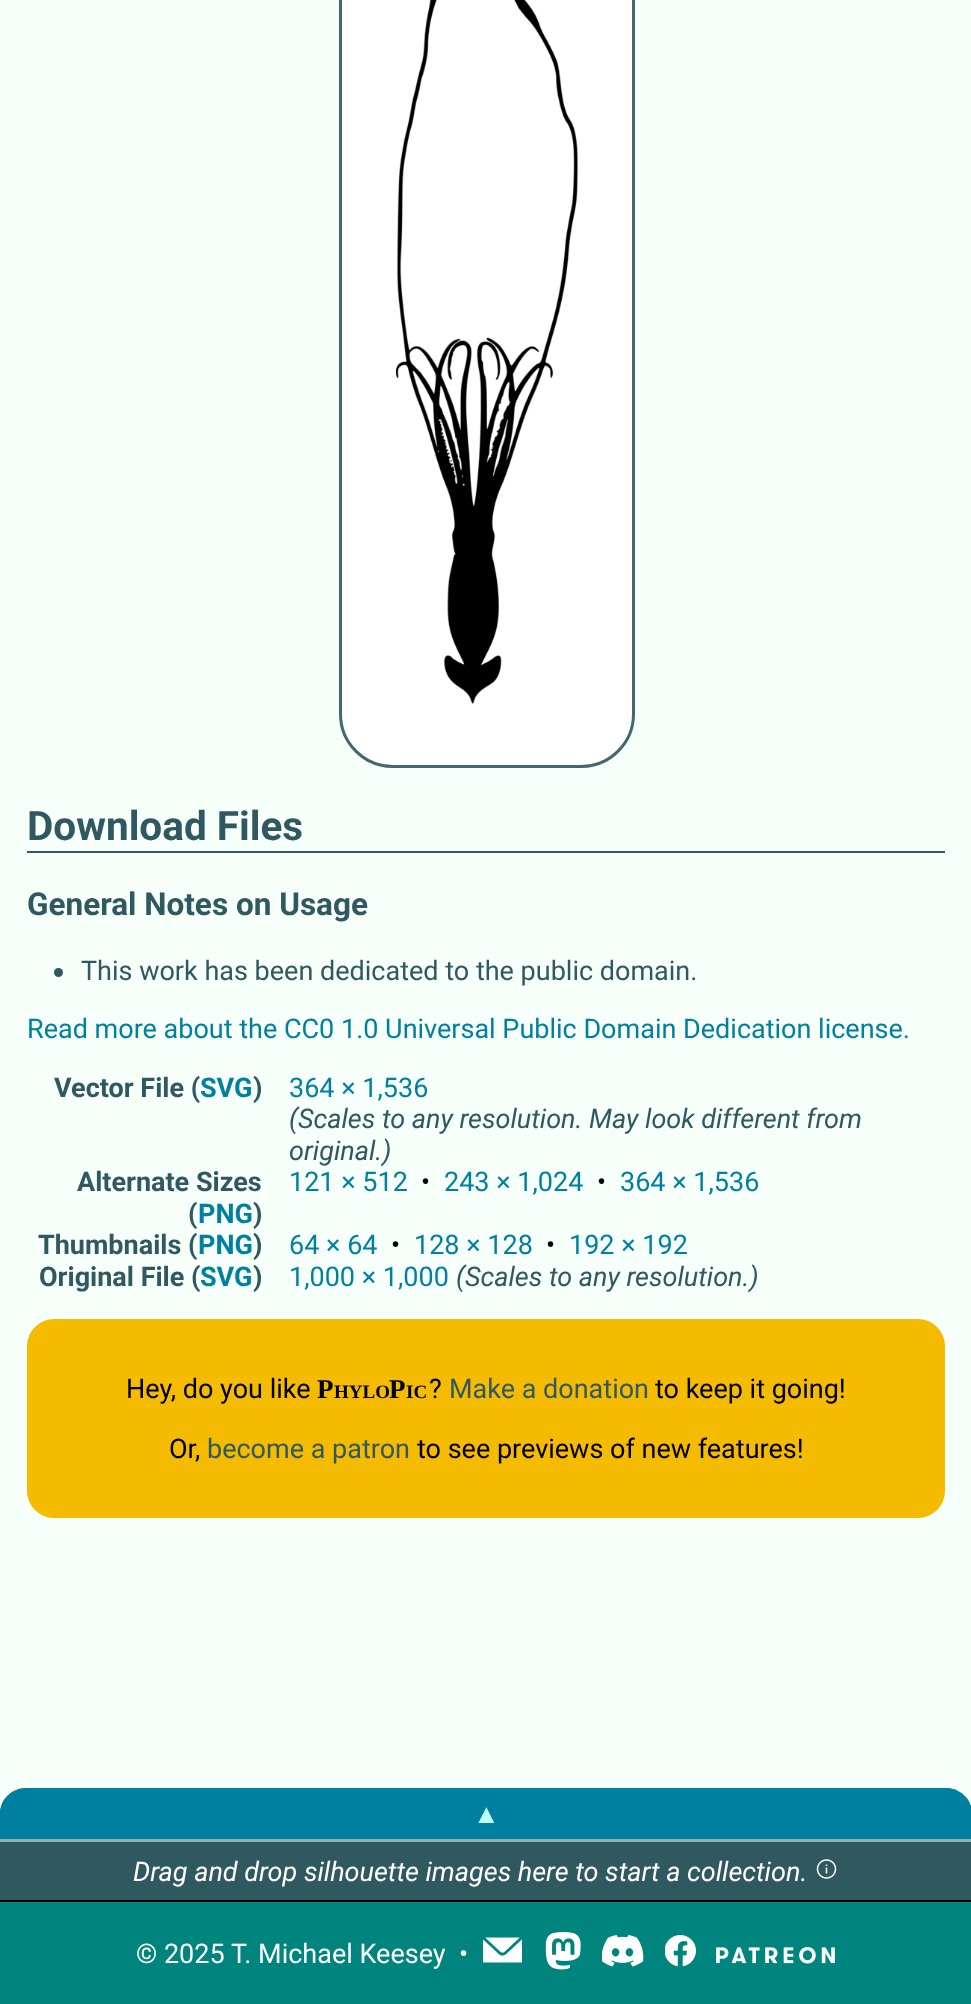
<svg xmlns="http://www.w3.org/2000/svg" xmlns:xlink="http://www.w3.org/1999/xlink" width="971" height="2004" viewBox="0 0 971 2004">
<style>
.cls-1{font:bold 40.5px Roboto;fill:#305860}
.cls-2{font:bold 31.5px Roboto;fill:#305860}
.cls-3{font:27px Roboto;fill:#305860}
.cls-4{font:27px Roboto;fill:#00809f}
.cls-5{font:bold 27px Roboto;fill:#305860}
.cls-6{font:bold 27px Roboto;fill:#00809f}
.cls-7{font:italic 27px Roboto;fill:#305860}
.cls-8{font:27px Roboto;fill:#000000}
.cls-9{font:bold 27px Liberation Serif;fill:#000000}
.cls-10{font:bold 19px Liberation Serif;fill:#000000}
.cls-11{font:27px Liberation Sans;fill:#c0ffff}
.cls-12{font:italic 27px Roboto;fill:#ffffff}
.cls-13{font:27px Roboto;fill:#ffffff}
</style>
<rect width="100%" height="100%" fill="#f7fffb"/>
<rect fill="#ffffff" x="339" y="-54" width="296" height="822" rx="54"/>
<rect fill="none" stroke="#305860" stroke-opacity="0.9" stroke-width="3" x="340.5" y="-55.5" width="293" height="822" rx="52.5"/>
<image xlink:href="image0.png" x="396" y="0" width="182" height="704"/>
<rect fill="#305860" x="27" y="851" width="918" height="2"/>
<circle fill="#305860" cx="58.5" cy="972.5" r="4.5"/>
<rect fill="#f5bb00" x="27" y="1319" width="918" height="199" rx="27"/>
<path fill="#305860" d="M27 1787H945C960 1787 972 1799 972 1814V1902H0V1814C0 1799 12 1787 27 1787Z"/>
<path fill="#f7fffb" d="M27 1788H945C959 1788 971 1798 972 1812C971 1800 962 1789 950 1786H22C9 1789 0 1801 0 1814C0 1799 12 1788 27 1788Z"/>
<rect fill="#000000" x="0" y="1900" width="971" height="2"/>
<path fill="#00809f" d="M27 1788C12 1788 0 1799 0 1814V1842H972V1814C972 1799 960 1788 945 1788Z"/>
<rect fill="#94acae" x="0" y="1839" width="971" height="3"/>
<image xlink:href="image1.png" x="816" y="1859" width="21" height="20"/>
<rect fill="#00857e" x="0" y="1902" width="971" height="102"/>
<image xlink:href="image2.png" x="483" y="1937" width="39" height="26"/>
<image xlink:href="image3.png" x="545" y="1932" width="36" height="38"/>
<image xlink:href="image4.png" x="602" y="1935" width="42" height="32"/>
<image xlink:href="image5.png" x="665" y="1935" width="31" height="32"/>
<image xlink:href="image6.png" x="716" y="1947" width="119" height="17"/>
<text class="cls-1" x="27" y="840">Download Files</text>
<text class="cls-2" x="27" y="915">General Notes on Usage</text>
<text class="cls-3" x="81" y="980">This work has been dedicated to the public domain.</text>
<text class="cls-4" x="27" y="1038">Read more about the CC0 1.0 Universal Public Domain Dedication license.</text>
<text class="cls-5" x="54" y="1097">Vector File (</text>
<text class="cls-6" x="200" y="1097">SVG</text>
<text class="cls-5" x="253" y="1097">)</text>
<text class="cls-4" x="289" y="1097">364 × 1,536</text>
<text class="cls-7"><tspan x="289" y="1128">(Scales to any resolution. May look different from</tspan><tspan x="289" y="1160">original.)</tspan></text>
<text class="cls-5" x="77" y="1191">Alternate Sizes</text>
<text class="cls-5" x="188" y="1223">(</text>
<text class="cls-6" x="198" y="1223">PNG</text>
<text class="cls-5" x="253" y="1223">)</text>
<text class="cls-4" x="289" y="1191">121 × 512</text>
<text class="cls-8" x="421" y="1191">•</text>
<text class="cls-4" x="444" y="1191">243 × 1,024</text>
<text class="cls-8" x="597" y="1191">•</text>
<text class="cls-4" x="620" y="1191">364 × 1,536</text>
<text class="cls-5" x="38" y="1254">Thumbnails (</text>
<text class="cls-6" x="198" y="1254">PNG</text>
<text class="cls-5" x="253" y="1254">)</text>
<text class="cls-4" x="289" y="1254">64 × 64</text>
<text class="cls-8" x="391" y="1254">•</text>
<text class="cls-4" x="414" y="1254">128 × 128</text>
<text class="cls-8" x="546" y="1254">•</text>
<text class="cls-4" x="569" y="1254">192 × 192</text>
<text class="cls-5" x="39" y="1286">Original File (</text>
<text class="cls-6" x="200" y="1286">SVG</text>
<text class="cls-5" x="253" y="1286">)</text>
<text class="cls-4" x="289" y="1286">1,000 × 1,000</text>
<text class="cls-7" x="456" y="1286">(Scales to any resolution.)</text>
<text class="cls-8" x="126" y="1398">Hey, do you like</text>
<text class="cls-9" x="317" y="1398">P</text>
<text class="cls-10" x="334" y="1398">HYLO</text>
<text class="cls-9" x="389" y="1398">P</text>
<text class="cls-10" x="406" y="1398">IC</text>
<text class="cls-8" x="429" y="1398">?</text>
<text class="cls-3" x="449" y="1398">Make a donation</text>
<text class="cls-8" x="655" y="1398">to keep it going!</text>
<text class="cls-8" x="169" y="1458">Or,</text>
<text class="cls-3" x="207" y="1458">become a patron</text>
<text class="cls-8" x="417" y="1458">to see previews of new features!</text>
<text class="cls-11" x="473" y="1823">▲</text>
<text class="cls-12" x="133" y="1881">Drag and drop silhouette images here to start a collection.</text>
<text class="cls-13" x="136" y="1963">© 2025</text>
<text class="cls-13" x="231" y="1963">T. Michael Keesey</text>
<text class="cls-13" x="459" y="1963">•</text>
</svg>
